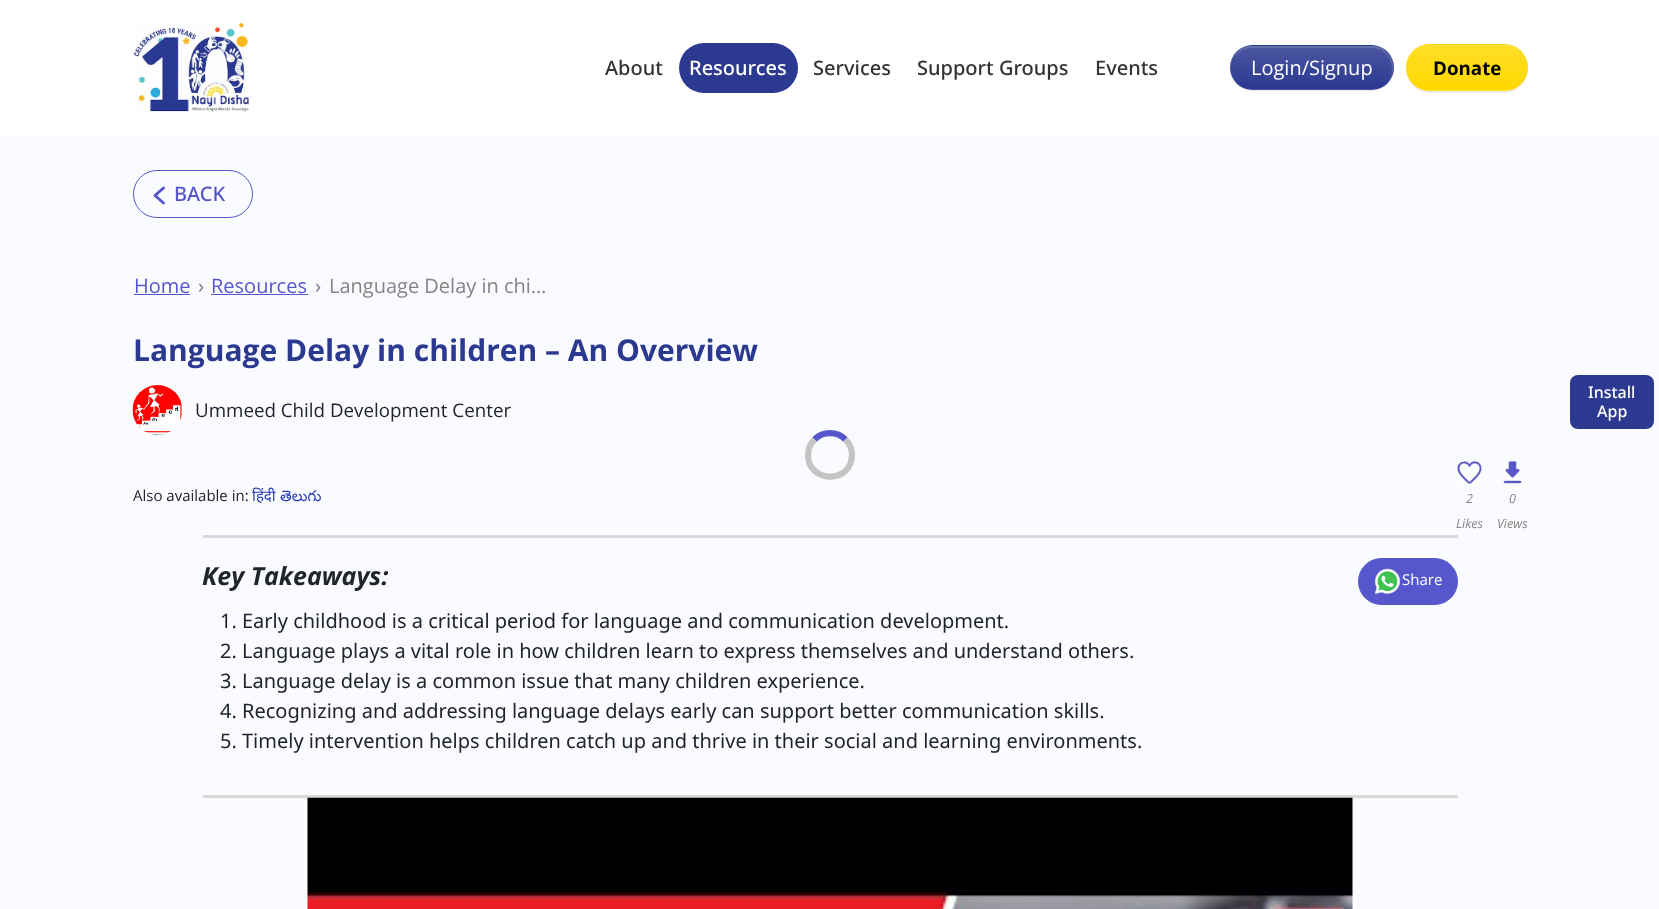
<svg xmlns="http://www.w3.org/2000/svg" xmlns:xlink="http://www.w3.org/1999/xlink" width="1659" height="909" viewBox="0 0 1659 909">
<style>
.cls-1{font:500 20px Noto Sans;fill:#333333}
.cls-2{font:500 20px Noto Sans;fill:#ffffff}
.cls-3{font:20px Open Sans;fill:#ffffff}
.cls-4{font:bold 18.75px Open Sans;fill:#000000}
.cls-5{font:500 20px Noto Sans;fill:#5656cd}
.cls-6{font:20px Open Sans;fill:#5656cd}
.cls-7{font:20px Noto Sans;fill:#848484}
.cls-8{font:20px Open Sans;fill:#848484}
.cls-9{font:bold 30px Open Sans;fill:#2b3990}
.cls-10{font:18.75px Open Sans;fill:#212529}
.cls-11{font:15px Open Sans;fill:#212529}
.cls-12{font:15px Noto Sans;fill:#253bb8}
.cls-13{font:15px Noto Sans Telugu;fill:#253bb8}
.cls-14{font:italic 12.5px Open Sans;fill:#848484}
.cls-15{font:italic bold 25px Open Sans;fill:#212529}
.cls-16{font:15px Open Sans;fill:#ffffff}
.cls-17{font:20px Noto Sans;fill:#212529}
.cls-18{font:500 16px Noto Sans;fill:#ffffff}
</style>
<defs>
<clipPath id="clip1"><rect x="1230" y="45" width="164" height="45" rx="22.5"/></clipPath>
<linearGradient id="g1" gradientUnits="userSpaceOnUse" x1="1312" y1="46" x2="1312" y2="89"><stop offset="0" stop-color="#ffffff" stop-opacity="0.15"/><stop offset="1" stop-color="#ffffff" stop-opacity="0"/></linearGradient>
<linearGradient id="g2" gradientUnits="userSpaceOnUse" x1="1312" y1="89" x2="1312" y2="131"><stop offset="0" stop-color="#ffffff" stop-opacity="0.15"/><stop offset="1" stop-color="#ffffff" stop-opacity="0"/></linearGradient>
<clipPath id="clip2"><rect x="1406" y="44" width="122" height="47" rx="23.5"/></clipPath>
<linearGradient id="g3" gradientUnits="userSpaceOnUse" x1="1467" y1="45" x2="1467" y2="90"><stop offset="0" stop-color="#ffffff" stop-opacity="0.15"/><stop offset="1" stop-color="#ffffff" stop-opacity="0"/></linearGradient>
<linearGradient id="g4" gradientUnits="userSpaceOnUse" x1="1467" y1="90" x2="1467" y2="135"><stop offset="0" stop-color="#ffffff" stop-opacity="0.15"/><stop offset="1" stop-color="#ffffff" stop-opacity="0"/></linearGradient>
</defs>
<rect width="100%" height="100%" fill="#fafbff"/>
<rect fill="#ffffff" x="0" y="0" width="1659" height="135"/>
<image xlink:href="image0.png" x="132" y="22" width="118" height="90"/>
<rect fill="#2b3990" x="679" y="43" width="119" height="50" rx="25"/>
<rect fill="#000000" fill-opacity="0.07" filter="blur(0.5px)" x="1230" y="46" width="164" height="45" rx="22.5"/>
<rect fill="#2b3990" x="1230" y="45" width="164" height="45" rx="22.5"/>
<g clip-path="url(#clip1)">
<rect fill="url(#g1)" x="1230" y="46" width="164" height="37"/>
<rect fill="url(#g2)" x="1246" y="89" width="132" height="1"/>
</g>
<path fill="#ffffff" fill-opacity="0.15" d="M1252 48H1371C1383 48 1392 57 1392 69C1392 74 1390 78 1388 82C1391 78 1393 73 1393 68C1393 56 1383 46 1372 46H1252C1241 46 1231 56 1231 68C1231 57 1241 48 1252 48Z"/>
<rect fill="#000000" fill-opacity="0.07" filter="blur(0.5px)" x="1406" y="45" width="122" height="48" rx="24"/>
<rect fill="#ffd800" x="1406" y="44" width="122" height="47" rx="23.5"/>
<g clip-path="url(#clip2)">
<rect fill="url(#g3)" x="1406" y="45" width="122" height="39"/>
<rect fill="url(#g4)" x="1423" y="90" width="88" height="1"/>
</g>
<path fill="#ffffff" fill-opacity="0.15" d="M1430 46H1504C1516 46 1526 56 1526 68C1526 57 1519 48 1508 45H1491H1426C1415 48 1408 57 1408 68C1408 56 1418 46 1430 46Z"/>
<rect fill="none" stroke="#5656cd" x="133.5" y="170.5" width="119" height="47" rx="23.5"/>
<path fill="none" stroke="#5656cd" stroke-width="3" stroke-linecap="round" stroke-linejoin="round" d="M163.5 188L155 195.5L163.5 203"/>
<rect fill="#5656cd" x="134" y="294" width="56" height="1"/>
<rect fill="#5656cd" x="211" y="294" width="97" height="1"/>
<image xlink:href="image1.png" x="132" y="385" width="50" height="50"/>
<image xlink:href="image2.png" x="1457" y="461" width="25" height="23"/>
<image xlink:href="image3.png" x="1503" y="461" width="19" height="23"/>
<rect fill="#d9d9d9" x="203" y="535" width="1255" height="3"/>
<rect fill="#d9d9d9" x="203" y="795" width="1255" height="3"/>
<rect fill="#5656cd" x="1358" y="558" width="100" height="47" rx="23.5"/>
<image xlink:href="image4.png" x="1374" y="568" width="26" height="26"/>
<image xlink:href="image5.png" x="307" y="797" width="1046" height="112"/>
<path fill="none" stroke="#5656cd" stroke-width="6.2" d="M814.5 439.5C823 431 837 431 845.5 439.5"/>
<path fill="none" stroke="#c4c4c4" stroke-width="6.2" d="M845.5 439.5C850.5 444.5 853 452 851.5 459.5C846.5 485 808 481 808 455C808 449 810.5 443.5 814.5 439.5"/>
<rect fill="#2b3990" x="1570" y="375" width="84" height="54" rx="8"/>
<text class="cls-1" x="605" y="75">About</text>
<text class="cls-2" x="689" y="75">Resources</text>
<text class="cls-1" x="813" y="75">Services</text>
<text class="cls-1" x="917" y="75">Support Groups</text>
<text class="cls-1" x="1095" y="75">Events</text>
<text class="cls-3" x="1251" y="75">Login/Signup</text>
<text class="cls-4" x="1433" y="75">Donate</text>
<text class="cls-5" x="174" y="201">BACK</text>
<text class="cls-6" x="134" y="293">Home</text>
<text class="cls-7" x="198" y="293">›</text>
<text class="cls-6" x="211" y="293">Resources</text>
<text class="cls-7" x="315" y="293">›</text>
<text class="cls-8" x="329" y="293">Language Delay in chi…</text>
<text class="cls-9" x="133" y="361">Language Delay in children – An Overview</text>
<text class="cls-10" x="195" y="417">Ummeed Child Development Center</text>
<text class="cls-11" x="133" y="501">Also available in:</text>
<text class="cls-12" x="252" y="501">हिंदी</text>
<text class="cls-13" x="280" y="501">తెలుగు</text>
<text class="cls-14" x="1466" y="503">2</text>
<text class="cls-14" x="1456" y="528">Likes</text>
<text class="cls-14" x="1509" y="503">0</text>
<text class="cls-14" x="1497" y="528">Views</text>
<text class="cls-15" x="202" y="585">Key Takeaways:</text>
<text class="cls-16" x="1402" y="585">Share</text>
<text class="cls-17"><tspan x="220" y="628">1. Early childhood is a critical period for language and communication development.</tspan><tspan x="220" y="658">2. Language plays a vital role in how children learn to express themselves and understand others.</tspan><tspan x="220" y="688">3. Language delay is a common issue that many children experience.</tspan><tspan x="220" y="718">4. Recognizing and addressing language delays early can support better communication skills.</tspan><tspan x="220" y="748">5. Timely intervention helps children catch up and thrive in their social and learning environments.</tspan></text>
<text class="cls-18" x="1588" y="398">Install</text>
<text class="cls-18" x="1597" y="417">App</text>
</svg>
